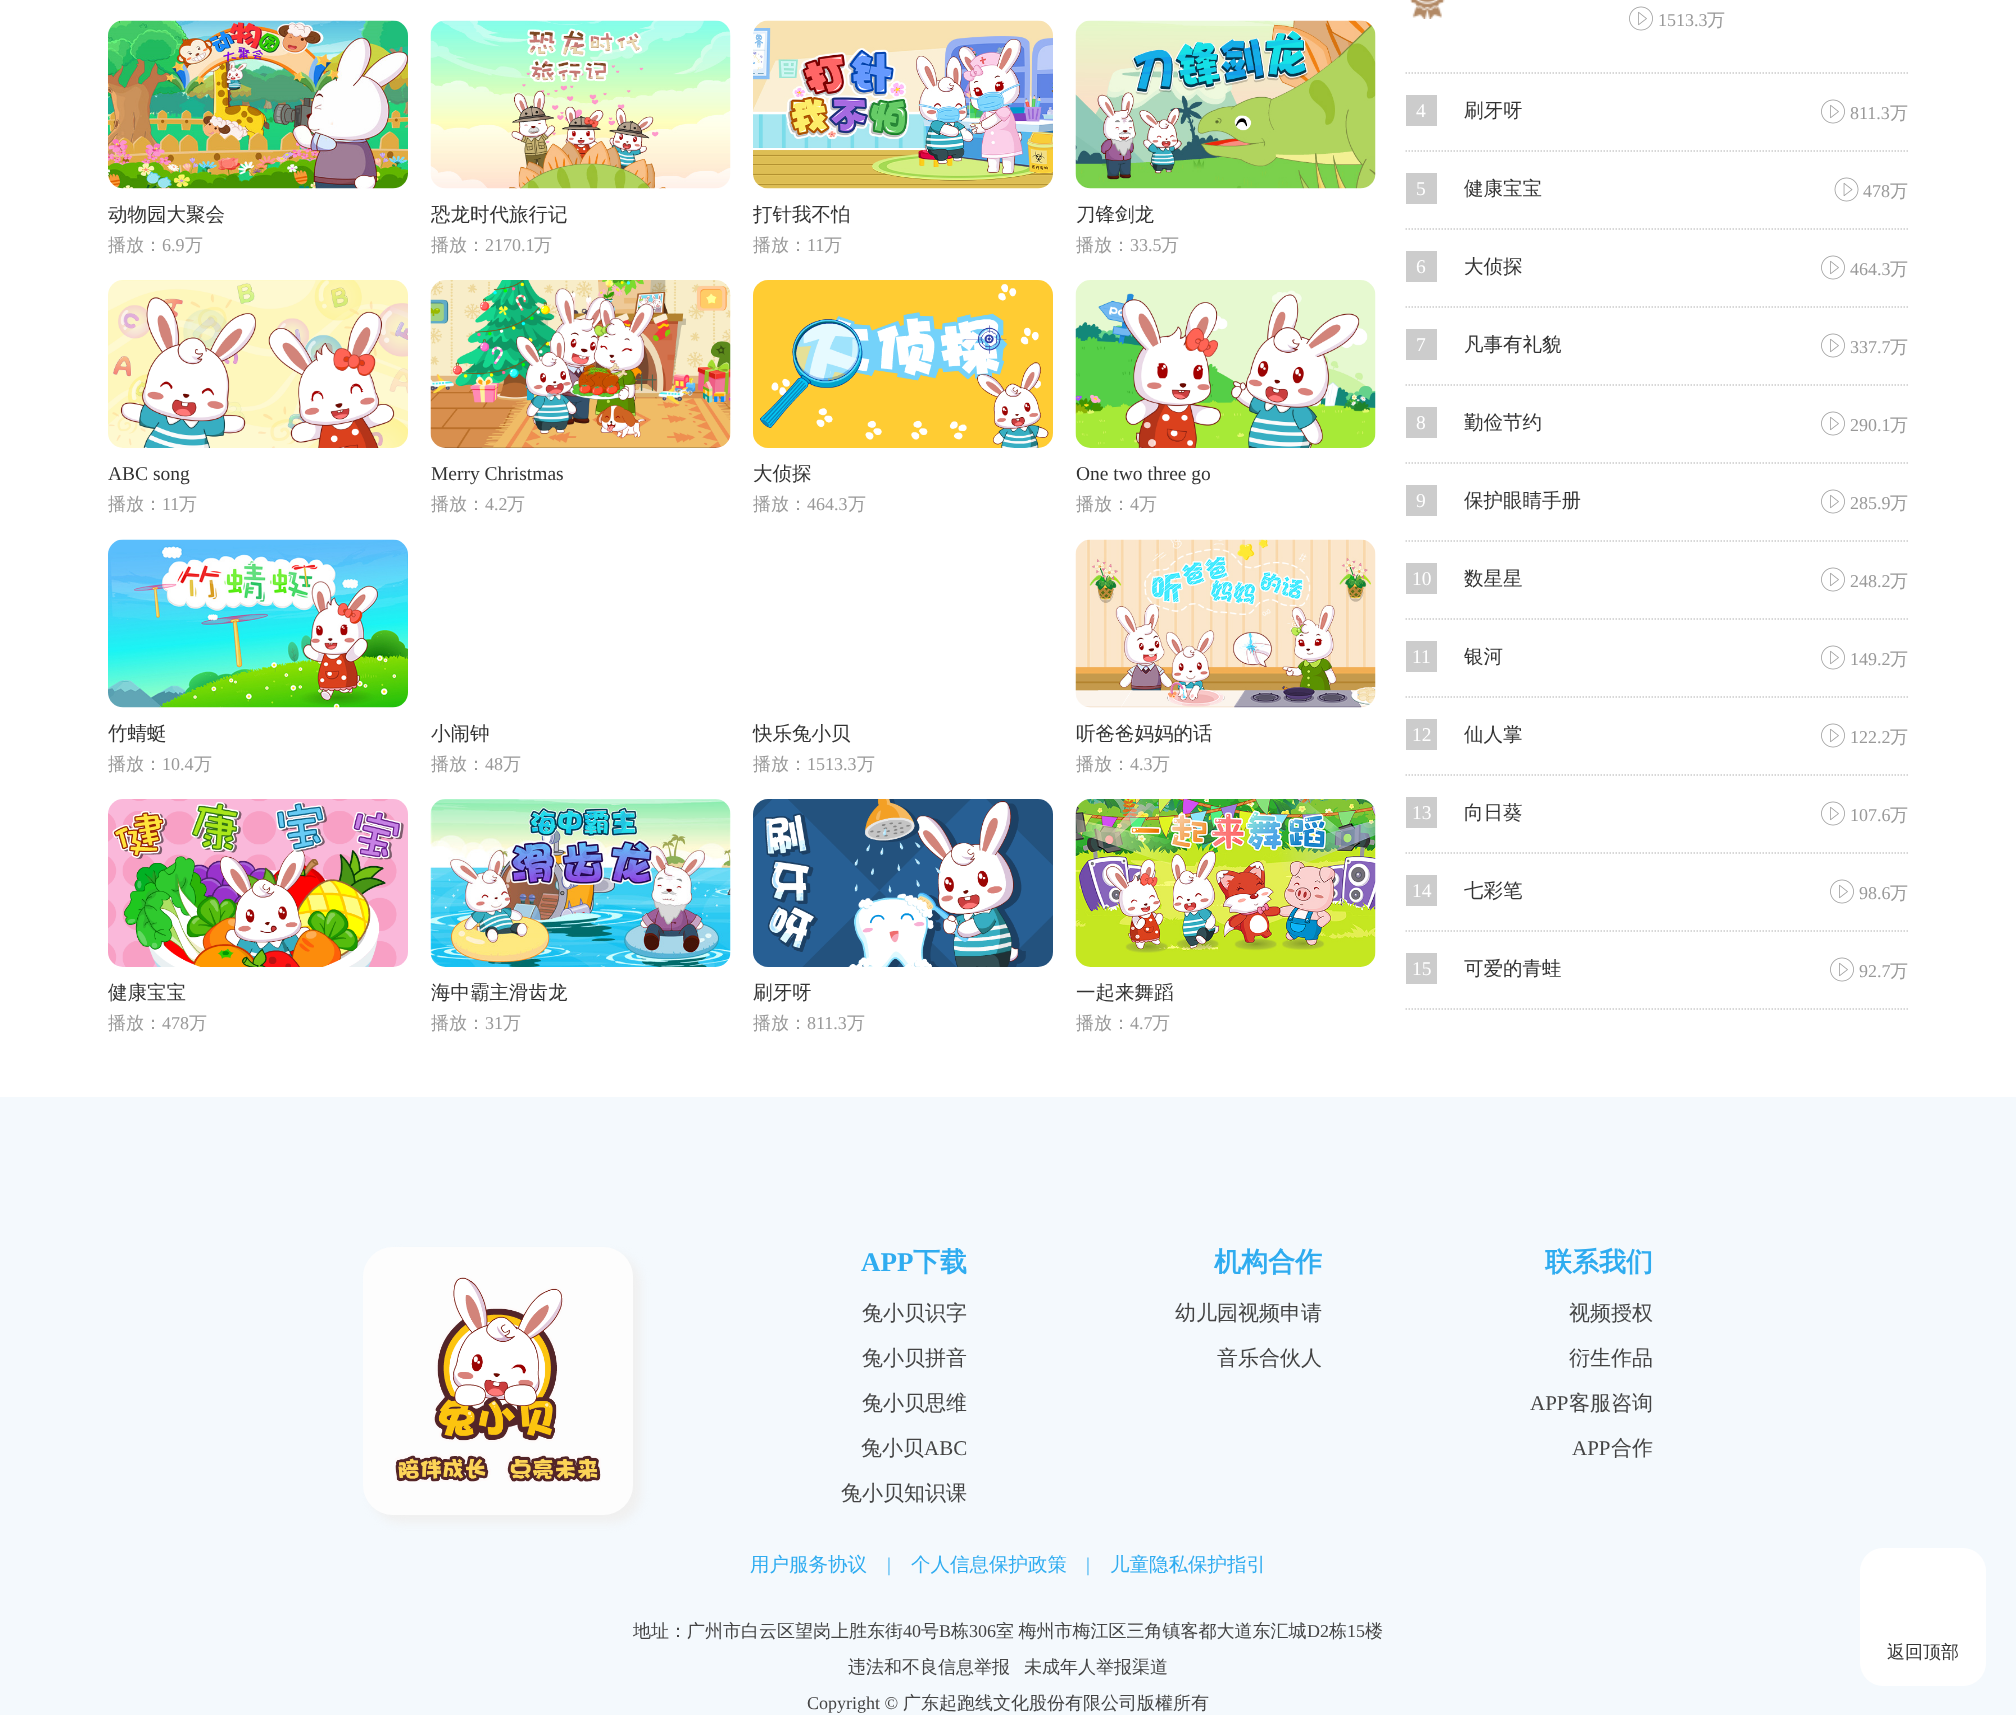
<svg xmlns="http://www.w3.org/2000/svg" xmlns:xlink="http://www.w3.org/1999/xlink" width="2016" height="1715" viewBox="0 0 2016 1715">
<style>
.cls-1{font:500 19.5px WenQuanYi Zen Hei;fill:#333333}
.cls-2{font:500 18px WenQuanYi Zen Hei;fill:#999999}
.cls-3{font:18px Liberation Serif;fill:#999999}
.cls-4{font:19.5px Liberation Serif;fill:#333333}
.cls-5{font:19.5px Liberation Serif;fill:#ffffff}
.cls-6{font:bold 27px Liberation Serif;fill:#2facf0}
.cls-7{font:bold 27px WenQuanYi Zen Hei;fill:#2facf0}
.cls-8{font:500 21px WenQuanYi Zen Hei;fill:#444444}
.cls-9{font:21px Liberation Serif;fill:#444444}
.cls-10{font:500 19.5px WenQuanYi Zen Hei;fill:#2facf0}
.cls-11{font:19.5px Liberation Serif;fill:#2facf0}
.cls-12{font:500 18px WenQuanYi Zen Hei;fill:#444444}
.cls-13{font:18px Liberation Serif;fill:#444444}
.cls-14{font:500 18px WenQuanYi Zen Hei;fill:#333333}
</style>
<defs>
<clipPath id="clip1"><rect x="431" y="197" width="277" height="36"/></clipPath>
</defs>
<rect width="100%" height="100%" fill="#ffffff"/>
<image xlink:href="image0.png" x="108" y="20" width="300" height="169"/>
<image xlink:href="image1.png" x="430" y="20" width="301" height="169"/>
<image xlink:href="image2.png" x="753" y="20" width="300" height="169"/>
<image xlink:href="image3.png" x="1075" y="20" width="301" height="169"/>
<image xlink:href="image4.png" x="108" y="280" width="300" height="168"/>
<image xlink:href="image5.png" x="430" y="280" width="301" height="168"/>
<image xlink:href="image6.png" x="753" y="280" width="300" height="168"/>
<image xlink:href="image7.png" x="1075" y="280" width="301" height="168"/>
<image xlink:href="image8.png" x="108" y="539" width="300" height="169"/>
<image xlink:href="image9.png" x="1075" y="539" width="301" height="169"/>
<image xlink:href="image10.png" x="108" y="799" width="300" height="168"/>
<image xlink:href="image11.png" x="430" y="799" width="301" height="168"/>
<image xlink:href="image12.png" x="753" y="799" width="300" height="168"/>
<image xlink:href="image13.png" x="1075" y="799" width="301" height="168"/>
<path fill="none" stroke="#cccccc" stroke-width="1.5" stroke-dasharray="1.5 1.5" d="M1405.5 73H1908"/>
<image xlink:href="image14.png" x="1410" y="0" width="35" height="19"/>
<image xlink:href="image15.png" x="1629" y="6" width="24" height="25"/>
<path fill="none" stroke="#cccccc" stroke-width="1.5" stroke-dasharray="1.5 1.5" d="M1405.5 151H1908"/>
<rect fill="#cccccc" x="1406" y="95" width="31" height="31"/>
<image xlink:href="image15.png" x="1821" y="99" width="24" height="25"/>
<path fill="none" stroke="#cccccc" stroke-width="1.5" stroke-dasharray="1.5 1.5" d="M1405.5 229H1908"/>
<rect fill="#cccccc" x="1406" y="173" width="31" height="31"/>
<image xlink:href="image16.png" x="1834" y="177" width="25" height="25"/>
<path fill="none" stroke="#cccccc" stroke-width="1.5" stroke-dasharray="1.5 1.5" d="M1405.5 307H1908"/>
<rect fill="#cccccc" x="1406" y="251" width="31" height="31"/>
<image xlink:href="image15.png" x="1821" y="255" width="24" height="25"/>
<path fill="none" stroke="#cccccc" stroke-width="1.5" stroke-dasharray="1.5 1.5" d="M1405.5 385H1908"/>
<rect fill="#cccccc" x="1406" y="329" width="31" height="31"/>
<image xlink:href="image15.png" x="1821" y="333" width="24" height="25"/>
<path fill="none" stroke="#cccccc" stroke-width="1.5" stroke-dasharray="1.5 1.5" d="M1405.5 463H1908"/>
<rect fill="#cccccc" x="1406" y="407" width="31" height="31"/>
<image xlink:href="image15.png" x="1821" y="411" width="24" height="25"/>
<path fill="none" stroke="#cccccc" stroke-width="1.5" stroke-dasharray="1.5 1.5" d="M1405.5 541H1908"/>
<rect fill="#cccccc" x="1406" y="485" width="31" height="31"/>
<image xlink:href="image15.png" x="1821" y="489" width="24" height="25"/>
<path fill="none" stroke="#cccccc" stroke-width="1.5" stroke-dasharray="1.5 1.5" d="M1405.5 619H1908"/>
<rect fill="#cccccc" x="1406" y="563" width="31" height="31"/>
<image xlink:href="image15.png" x="1821" y="567" width="24" height="25"/>
<path fill="none" stroke="#cccccc" stroke-width="1.5" stroke-dasharray="1.5 1.5" d="M1405.5 697H1908"/>
<rect fill="#cccccc" x="1406" y="641" width="31" height="31"/>
<image xlink:href="image15.png" x="1821" y="645" width="24" height="25"/>
<path fill="none" stroke="#cccccc" stroke-width="1.5" stroke-dasharray="1.5 1.5" d="M1405.5 775H1908"/>
<rect fill="#cccccc" x="1406" y="719" width="31" height="31"/>
<image xlink:href="image15.png" x="1821" y="723" width="24" height="25"/>
<path fill="none" stroke="#cccccc" stroke-width="1.5" stroke-dasharray="1.5 1.5" d="M1405.5 853H1908"/>
<rect fill="#cccccc" x="1406" y="797" width="31" height="31"/>
<image xlink:href="image15.png" x="1821" y="801" width="24" height="25"/>
<path fill="none" stroke="#cccccc" stroke-width="1.5" stroke-dasharray="1.5 1.5" d="M1405.5 931H1908"/>
<rect fill="#cccccc" x="1406" y="875" width="31" height="31"/>
<image xlink:href="image15.png" x="1830" y="879" width="24" height="25"/>
<path fill="none" stroke="#cccccc" stroke-width="1.5" stroke-dasharray="1.5 1.5" d="M1405.5 1009H1908"/>
<rect fill="#cccccc" x="1406" y="953" width="31" height="31"/>
<image xlink:href="image15.png" x="1830" y="957" width="24" height="25"/>
<rect fill="#f4f9fd" x="0" y="1097" width="2016" height="618"/>
<rect fill="#f0f0f0" filter="blur(4px)" x="371" y="1254" width="270" height="269" rx="30"/>
<rect fill="#fdfdfd" x="363" y="1247" width="270" height="268" rx="30"/>
<image xlink:href="image17.png" x="395" y="1277" width="206" height="205"/>
<rect fill="#ffffff" x="1860" y="1548" width="126" height="138" rx="23"/>
<text class="cls-1" x="108" y="221">动物园大聚会</text>
<text class="cls-2" x="108" y="251">播放：</text>
<text class="cls-3" x="162" y="251">6.9</text>
<text class="cls-2" x="185" y="251">万</text>
<g clip-path="url(#clip1)">
<text class="cls-1" x="431" y="221">恐龙时代旅行记</text>
</g>
<text class="cls-2" x="431" y="251">播放：</text>
<text class="cls-3" x="485" y="251">2170.1</text>
<text class="cls-2" x="534" y="251">万</text>
<text class="cls-1" x="753" y="221">打针我不怕</text>
<text class="cls-2" x="753" y="251">播放：</text>
<text class="cls-3" x="807" y="251">11</text>
<text class="cls-2" x="824" y="251">万</text>
<text class="cls-1" x="1076" y="221">刀锋剑龙</text>
<text class="cls-2" x="1076" y="251">播放：</text>
<text class="cls-3" x="1130" y="251">33.5</text>
<text class="cls-2" x="1161" y="251">万</text>
<text class="cls-4" x="108" y="480">ABC song</text>
<text class="cls-2" x="108" y="510">播放：</text>
<text class="cls-3" x="162" y="510">11</text>
<text class="cls-2" x="179" y="510">万</text>
<text class="cls-4" x="431" y="480">Merry Christmas</text>
<text class="cls-2" x="431" y="510">播放：</text>
<text class="cls-3" x="485" y="510">4.2</text>
<text class="cls-2" x="507" y="510">万</text>
<text class="cls-1" x="753" y="480">大侦探</text>
<text class="cls-2" x="753" y="510">播放：</text>
<text class="cls-3" x="807" y="510">464.3</text>
<text class="cls-2" x="848" y="510">万</text>
<text class="cls-4" x="1076" y="480">One two three go</text>
<text class="cls-2" x="1076" y="510">播放：</text>
<text class="cls-3" x="1130" y="510">4</text>
<text class="cls-2" x="1139" y="510">万</text>
<text class="cls-1" x="108" y="740">竹蜻蜓</text>
<text class="cls-2" x="108" y="770">播放：</text>
<text class="cls-3" x="162" y="770">10.4</text>
<text class="cls-2" x="194" y="770">万</text>
<text class="cls-1" x="431" y="740">小闹钟</text>
<text class="cls-2" x="431" y="770">播放：</text>
<text class="cls-3" x="485" y="770">48</text>
<text class="cls-2" x="503" y="770">万</text>
<text class="cls-1" x="753" y="740">快乐兔小贝</text>
<text class="cls-2" x="753" y="770">播放：</text>
<text class="cls-3" x="807" y="770">1513.3</text>
<text class="cls-2" x="857" y="770">万</text>
<text class="cls-1" x="1076" y="740">听爸爸妈妈的话</text>
<text class="cls-2" x="1076" y="770">播放：</text>
<text class="cls-3" x="1130" y="770">4.3</text>
<text class="cls-2" x="1152" y="770">万</text>
<text class="cls-1" x="108" y="999">健康宝宝</text>
<text class="cls-2" x="108" y="1029">播放：</text>
<text class="cls-3" x="162" y="1029">478</text>
<text class="cls-2" x="189" y="1029">万</text>
<text class="cls-1" x="431" y="999">海中霸主滑齿龙</text>
<text class="cls-2" x="431" y="1029">播放：</text>
<text class="cls-3" x="485" y="1029">31</text>
<text class="cls-2" x="503" y="1029">万</text>
<text class="cls-1" x="753" y="999">刷牙呀</text>
<text class="cls-2" x="753" y="1029">播放：</text>
<text class="cls-3" x="807" y="1029">811.3</text>
<text class="cls-2" x="847" y="1029">万</text>
<text class="cls-1" x="1076" y="999">一起来舞蹈</text>
<text class="cls-2" x="1076" y="1029">播放：</text>
<text class="cls-3" x="1130" y="1029">4.7</text>
<text class="cls-2" x="1152" y="1029">万</text>
<text class="cls-3" x="1658" y="26">1513.3</text>
<text class="cls-2" x="1707" y="26">万</text>
<text class="cls-5" x="1416" y="117">4</text>
<text class="cls-1" x="1464" y="117">刷牙呀</text>
<text class="cls-3" x="1850" y="119">811.3</text>
<text class="cls-2" x="1890" y="119">万</text>
<text class="cls-5" x="1416" y="195">5</text>
<text class="cls-1" x="1464" y="195">健康宝宝</text>
<text class="cls-3" x="1863" y="197">478</text>
<text class="cls-2" x="1890" y="197">万</text>
<text class="cls-5" x="1416" y="273">6</text>
<text class="cls-1" x="1464" y="273">大侦探</text>
<text class="cls-3" x="1850" y="275">464.3</text>
<text class="cls-2" x="1890" y="275">万</text>
<text class="cls-5" x="1416" y="351">7</text>
<text class="cls-1" x="1464" y="351">凡事有礼貌</text>
<text class="cls-3" x="1850" y="353">337.7</text>
<text class="cls-2" x="1890" y="353">万</text>
<text class="cls-5" x="1416" y="429">8</text>
<text class="cls-1" x="1464" y="429">勤俭节约</text>
<text class="cls-3" x="1850" y="431">290.1</text>
<text class="cls-2" x="1890" y="431">万</text>
<text class="cls-5" x="1416" y="507">9</text>
<text class="cls-1" x="1464" y="507">保护眼睛手册</text>
<text class="cls-3" x="1850" y="509">285.9</text>
<text class="cls-2" x="1890" y="509">万</text>
<text class="cls-5" x="1412" y="585">10</text>
<text class="cls-1" x="1464" y="585">数星星</text>
<text class="cls-3" x="1850" y="587">248.2</text>
<text class="cls-2" x="1890" y="587">万</text>
<text class="cls-5" x="1412" y="663">11</text>
<text class="cls-1" x="1464" y="663">银河</text>
<text class="cls-3" x="1850" y="665">149.2</text>
<text class="cls-2" x="1890" y="665">万</text>
<text class="cls-5" x="1412" y="741">12</text>
<text class="cls-1" x="1464" y="741">仙人掌</text>
<text class="cls-3" x="1850" y="743">122.2</text>
<text class="cls-2" x="1890" y="743">万</text>
<text class="cls-5" x="1412" y="819">13</text>
<text class="cls-1" x="1464" y="819">向日葵</text>
<text class="cls-3" x="1850" y="821">107.6</text>
<text class="cls-2" x="1890" y="821">万</text>
<text class="cls-5" x="1412" y="897">14</text>
<text class="cls-1" x="1464" y="897">七彩笔</text>
<text class="cls-3" x="1859" y="899">98.6</text>
<text class="cls-2" x="1890" y="899">万</text>
<text class="cls-5" x="1412" y="975">15</text>
<text class="cls-1" x="1464" y="975">可爱的青蛙</text>
<text class="cls-3" x="1859" y="977">92.7</text>
<text class="cls-2" x="1890" y="977">万</text>
<text class="cls-6" x="861" y="1271">APP</text>
<text class="cls-7" x="913" y="1271">下载</text>
<text class="cls-8" x="862" y="1320">兔小贝识字</text>
<text class="cls-8" x="862" y="1365">兔小贝拼音</text>
<text class="cls-8" x="862" y="1410">兔小贝思维</text>
<text class="cls-8" x="861" y="1455">兔小贝</text>
<text class="cls-9" x="924" y="1455">ABC</text>
<text class="cls-8" x="841" y="1500">兔小贝知识课</text>
<text class="cls-7" x="1214" y="1271">机构合作</text>
<text class="cls-8" x="1175" y="1320">幼儿园视频申请</text>
<text class="cls-8" x="1217" y="1365">音乐合伙人</text>
<text class="cls-7" x="1545" y="1271">联系我们</text>
<text class="cls-8" x="1569" y="1320">视频授权</text>
<text class="cls-8" x="1569" y="1365">衍生作品</text>
<text class="cls-9" x="1530" y="1410">APP</text>
<text class="cls-8" x="1569" y="1410">客服咨询</text>
<text class="cls-9" x="1572" y="1455">APP</text>
<text class="cls-8" x="1611" y="1455">合作</text>
<text class="cls-10" x="750" y="1571">用户服务协议</text>
<text class="cls-11" x="887" y="1571">|</text>
<text class="cls-10" x="911" y="1571">个人信息保护政策</text>
<text class="cls-11" x="1086" y="1571">|</text>
<text class="cls-10" x="1110" y="1571">儿童隐私保护指引</text>
<text class="cls-12" x="633" y="1637">地址：广州市白云区望岗上胜东街</text>
<text class="cls-13" x="903" y="1637">40</text>
<text class="cls-12" x="921" y="1637">号</text>
<text class="cls-13" x="939" y="1637">B</text>
<text class="cls-12" x="951" y="1637">栋</text>
<text class="cls-13" x="969" y="1637">306</text>
<text class="cls-12" x="996" y="1637" word-spacing="-1">室 梅州市梅江区三角镇客都大道东汇城</text>
<text class="cls-13" x="1307" y="1637">D2</text>
<text class="cls-12" x="1329" y="1637">栋</text>
<text class="cls-13" x="1347" y="1637">15</text>
<text class="cls-12" x="1365" y="1637">楼</text>
<text class="cls-12" x="848" y="1673">违法和不良信息举报</text>
<text class="cls-12" x="1024" y="1673">未成年人举报渠道</text>
<text class="cls-13" x="807" y="1709">Copyright ©</text>
<text class="cls-12" x="903" y="1709">广东起跑线文化股份有限公司版權所有</text>
<text class="cls-14" x="1887" y="1658">返回顶部</text>
</svg>
